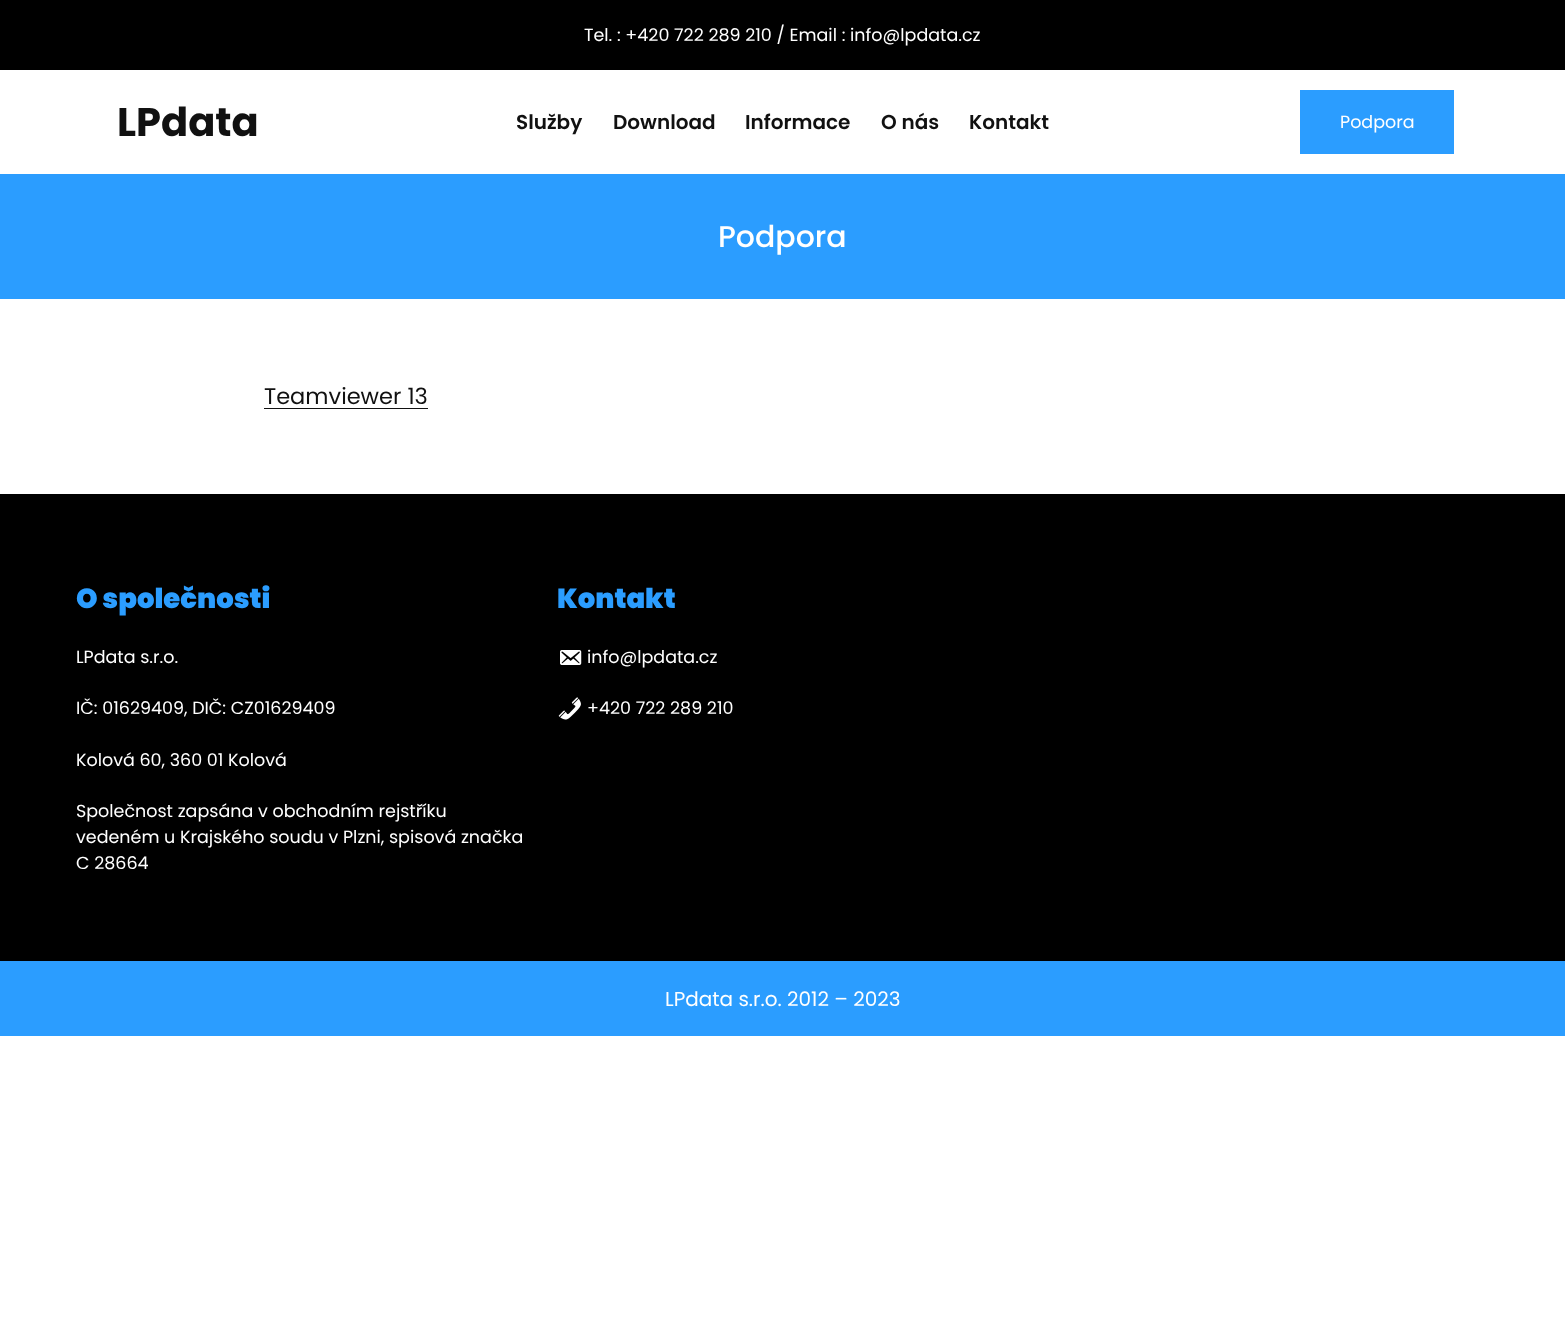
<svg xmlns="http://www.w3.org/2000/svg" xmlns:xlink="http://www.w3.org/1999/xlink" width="1565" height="1341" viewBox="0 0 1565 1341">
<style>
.cls-1{font:17.5px Poppins;fill:#ffffff}
.cls-2{font:bold 40px Poppins;fill:#111111}
.cls-3{font:600 20px Poppins;fill:#111111}
.cls-4{font:500 30px Poppins;fill:#ffffff}
.cls-5{font:22.5px Poppins;fill:#111111}
.cls-6{font:900 27.5px Poppins;fill:#2b9dff}
.cls-7{font:20px Poppins;fill:#ffffff}
</style>
<rect width="100%" height="100%" fill="#ffffff"/>
<rect fill="#000000" x="0" y="0" width="1565" height="70"/>
<rect fill="#2b9dff" x="1300" y="90" width="154" height="64"/>
<rect fill="#2b9dff" x="0" y="174" width="1565" height="125"/>
<rect fill="#111111" x="264" y="408" width="164" height="1"/>
<rect fill="#000000" x="0" y="494" width="1565" height="467"/>
<image xlink:href="image0.png" x="560" y="650" width="22" height="15"/>
<image xlink:href="image1.png" x="558" y="697" width="23" height="23"/>
<rect fill="#2b9dff" x="0" y="961" width="1565" height="75"/>
<text class="cls-1" x="584" y="41">Tel. : +420 722 289 210 / Email : info@lpdata.cz</text>
<text class="cls-2" x="117" y="136">LPdata</text>
<text class="cls-3" x="516" y="129">Služby</text>
<text class="cls-3" x="613" y="129">Download</text>
<text class="cls-3" x="745" y="129">Informace</text>
<text class="cls-3" x="881" y="129">O nás</text>
<text class="cls-3" x="969" y="129">Kontakt</text>
<text class="cls-1" x="1340" y="128">Podpora</text>
<text class="cls-4" x="718" y="247">Podpora</text>
<text class="cls-5" x="264" y="404">Teamviewer 13</text>
<text class="cls-6" x="76" y="608">O společnosti</text>
<text class="cls-1" x="76" y="663">LPdata s.r.o.</text>
<text class="cls-1" x="76" y="714">IČ: 01629409, DIČ: CZ01629409</text>
<text class="cls-1" x="76" y="766">Kolová 60, 360 01 Kolová</text>
<text class="cls-1"><tspan x="76" y="817">Společnost zapsána v obchodním rejstříku</tspan><tspan x="76" y="843">vedeném u Krajského soudu v Plzni, spisová značka</tspan><tspan x="76" y="869">C 28664</tspan></text>
<text class="cls-6" x="557" y="608">Kontakt</text>
<text class="cls-1" x="587" y="663">info@lpdata.cz</text>
<text class="cls-1" x="587" y="714">+420 722 289 210</text>
<text class="cls-7" x="665" y="1006">LPdata s.r.o. 2012 – 2023</text>
</svg>
